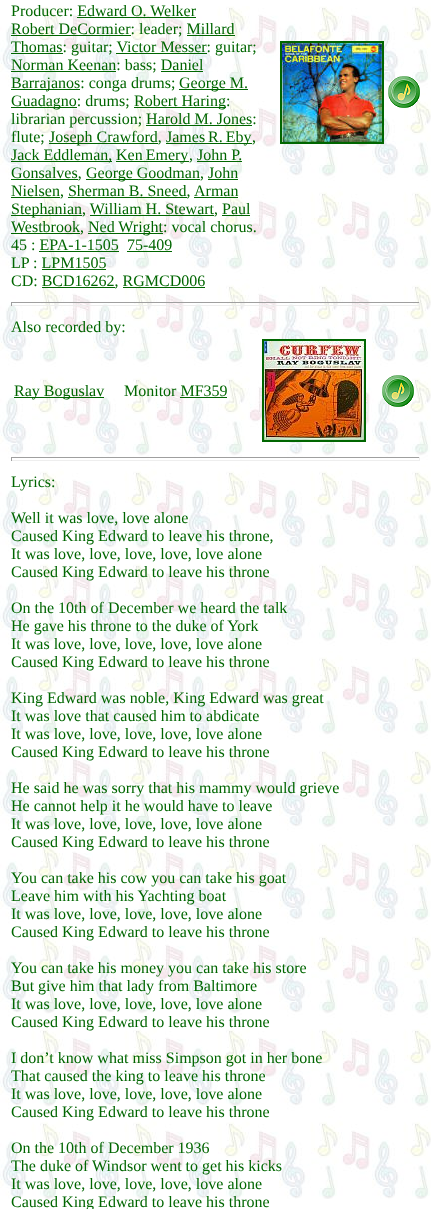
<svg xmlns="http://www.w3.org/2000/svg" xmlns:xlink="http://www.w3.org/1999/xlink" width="431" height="1209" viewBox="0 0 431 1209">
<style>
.cls-1{font:16px Liberation Serif;fill:#006600}
</style>
<rect width="100%" height="100%" fill="#ffffff"/>
<image xlink:href="image0.png" x="0" y="6" width="431" height="1193"/>
<rect fill="#006600" x="77" y="17" width="119" height="1"/>
<rect fill="#006600" x="11" y="35" width="120" height="1"/>
<rect fill="#006600" x="187" y="35" width="48" height="1"/>
<rect fill="#006600" x="11" y="53" width="52" height="1"/>
<rect fill="#006600" x="116" y="53" width="91" height="1"/>
<rect fill="#006600" x="11" y="71" width="105" height="1"/>
<rect fill="#006600" x="161" y="71" width="42" height="1"/>
<rect fill="#006600" x="11" y="89" width="69" height="1"/>
<rect fill="#006600" x="179" y="89" width="69" height="1"/>
<rect fill="#006600" x="11" y="107" width="66" height="1"/>
<rect fill="#006600" x="134" y="107" width="92" height="1"/>
<rect fill="#006600" x="146" y="125" width="106" height="1"/>
<rect fill="#006600" x="49" y="143" width="109" height="1"/>
<rect fill="#006600" x="166" y="143" width="86" height="1"/>
<rect fill="#006600" x="11" y="161" width="101" height="1"/>
<rect fill="#006600" x="116" y="161" width="73" height="1"/>
<rect fill="#006600" x="197" y="161" width="45" height="1"/>
<rect fill="#006600" x="11" y="179" width="67" height="1"/>
<rect fill="#006600" x="86" y="179" width="114" height="1"/>
<rect fill="#006600" x="208" y="179" width="30" height="1"/>
<rect fill="#006600" x="11" y="197" width="49" height="1"/>
<rect fill="#006600" x="194" y="197" width="44" height="1"/>
<rect fill="#006600" x="68" y="197" width="119" height="1"/>
<rect fill="#006600" x="11" y="215" width="71" height="1"/>
<rect fill="#006600" x="90" y="215" width="124" height="1"/>
<rect fill="#006600" x="222" y="215" width="28" height="1"/>
<rect fill="#006600" x="11" y="233" width="69" height="1"/>
<rect fill="#006600" x="88" y="233" width="75" height="1"/>
<rect fill="#006600" x="127" y="251" width="45" height="1"/>
<rect fill="#006600" x="39" y="251" width="80" height="1"/>
<rect fill="#006600" x="42" y="269" width="64" height="1"/>
<rect fill="#006600" x="42" y="287" width="73" height="1"/>
<rect fill="#006600" x="123" y="287" width="82" height="1"/>
<rect fill="none" stroke="#006600" stroke-width="2" x="281" y="42" width="102" height="101"/>
<image xlink:href="image1.png" x="282" y="43" width="100" height="99"/>
<image xlink:href="image2.png" x="388" y="76" width="32" height="32"/>
<rect fill="#9f9f9f" x="11" y="302" width="409" height="1"/>
<rect fill="#eeeeee" x="419" y="302" width="1" height="4"/>
<rect fill="#eeeeee" x="11" y="305" width="409" height="1"/>
<rect fill="#9f9f9f" x="11" y="302" width="1" height="4"/>
<rect fill="#006600" x="14" y="397" width="90" height="1"/>
<rect fill="#006600" x="180" y="397" width="47" height="1"/>
<rect fill="none" stroke="#006600" stroke-width="2" x="263" y="340" width="102" height="101"/>
<image xlink:href="image3.png" x="264" y="341" width="100" height="99"/>
<image xlink:href="image4.png" x="382" y="375" width="32" height="32"/>
<rect fill="#9f9f9f" x="11" y="457" width="409" height="1"/>
<rect fill="#eeeeee" x="419" y="457" width="1" height="4"/>
<rect fill="#eeeeee" x="11" y="460" width="409" height="1"/>
<rect fill="#9f9f9f" x="11" y="457" width="1" height="4"/>
<text class="cls-1"><tspan x="11" y="16">Producer: Edward O. Welker</tspan><tspan x="11" y="34">Robert DeCormier: leader; Millard</tspan><tspan x="11" y="52">Thomas: guitar; Victor Messer: guitar;</tspan><tspan x="11" y="70">Norman Keenan: bass; Daniel</tspan><tspan x="11" y="88">Barrajanos: conga drums;</tspan></text>
<text class="cls-1" x="179" y="88">George M.</text>
<text class="cls-1" x="11" y="106">Guadagno: drums;</text>
<text class="cls-1" x="134" y="106">Robert Haring:</text>
<text class="cls-1"><tspan x="11" y="124">librarian percussion; Harold M. Jones:</tspan><tspan x="11" y="142">flute;</tspan></text>
<text class="cls-1" x="49" y="142">Joseph Crawford,</text>
<text class="cls-1" x="166" y="142" word-spacing="-1">James R. Eby</text>
<text class="cls-1" x="252" y="142">,</text>
<text class="cls-1" x="11" y="160">Jack Eddleman,</text>
<text class="cls-1" x="116" y="160" word-spacing="-1">Ken Emery</text>
<text class="cls-1" x="189" y="160">, John P.</text>
<text class="cls-1" x="11" y="178">Gonsalves,</text>
<text class="cls-1" x="86" y="178">George Goodman, John</text>
<text class="cls-1" x="11" y="196">Nielsen, Sherman B. Sneed,</text>
<text class="cls-1" x="194" y="196">Arman</text>
<text class="cls-1"><tspan x="11" y="214">Stephanian, William H. Stewart, Paul</tspan><tspan x="11" y="232">Westbrook,</tspan></text>
<text class="cls-1" x="88" y="232">Ned Wright: vocal chorus.</text>
<text class="cls-1" x="11" y="250">45 : EPA-1-1505</text>
<text class="cls-1" x="127" y="250">75-409</text>
<text class="cls-1"><tspan x="11" y="268">LP : LPM1505</tspan><tspan x="11" y="286">CD: BCD16262, RGMCD006</tspan></text>
<text class="cls-1" x="11" y="332">Also recorded by:</text>
<text class="cls-1" x="14" y="396">Ray Boguslav</text>
<text class="cls-1" x="124" y="396">Monitor MF359</text>
<text class="cls-1" x="11" y="487">Lyrics:</text>
<text class="cls-1"><tspan x="11" y="523">Well it was love, love alone</tspan><tspan x="11" y="541">Caused King Edward to leave his throne,</tspan><tspan x="11" y="559">It was love, love, love, love, love alone</tspan><tspan x="11" y="577">Caused King Edward to leave his throne</tspan></text>
<text class="cls-1"><tspan x="11" y="613">On the 10th of December we heard the talk</tspan><tspan x="11" y="631">He gave his throne to the duke of York</tspan><tspan x="11" y="649">It was love, love, love, love, love alone</tspan><tspan x="11" y="667">Caused King Edward to leave his throne</tspan></text>
<text class="cls-1"><tspan x="11" y="703">King Edward was noble, King Edward was great</tspan><tspan x="11" y="721">It was love that caused him to abdicate</tspan><tspan x="11" y="739">It was love, love, love, love, love alone</tspan><tspan x="11" y="757">Caused King Edward to leave his throne</tspan></text>
<text class="cls-1"><tspan x="11" y="793">He said he was sorry that his mammy would grieve</tspan><tspan x="11" y="811">He cannot help it he would have to leave</tspan><tspan x="11" y="829">It was love, love, love, love, love alone</tspan><tspan x="11" y="847">Caused King Edward to leave his throne</tspan></text>
<text class="cls-1"><tspan x="11" y="883">You can take his cow you can take his goat</tspan><tspan x="11" y="901">Leave him with his Yachting boat</tspan><tspan x="11" y="919">It was love, love, love, love, love alone</tspan><tspan x="11" y="937">Caused King Edward to leave his throne</tspan></text>
<text class="cls-1"><tspan x="11" y="973">You can take his money you can take his store</tspan><tspan x="11" y="991">But give him that lady from Baltimore</tspan><tspan x="11" y="1009">It was love, love, love, love, love alone</tspan><tspan x="11" y="1027">Caused King Edward to leave his throne</tspan></text>
<text class="cls-1"><tspan x="11" y="1063">I don’t know what miss Simpson got in her bone</tspan><tspan x="11" y="1081">That caused the king to leave his throne</tspan><tspan x="11" y="1099">It was love, love, love, love, love alone</tspan><tspan x="11" y="1117">Caused King Edward to leave his throne</tspan></text>
<text class="cls-1"><tspan x="11" y="1153">On the 10th of December 1936</tspan><tspan x="11" y="1171">The duke of Windsor went to get his kicks</tspan><tspan x="11" y="1189">It was love, love, love, love, love alone</tspan><tspan x="11" y="1207">Caused King Edward to leave his throne</tspan></text>
</svg>
